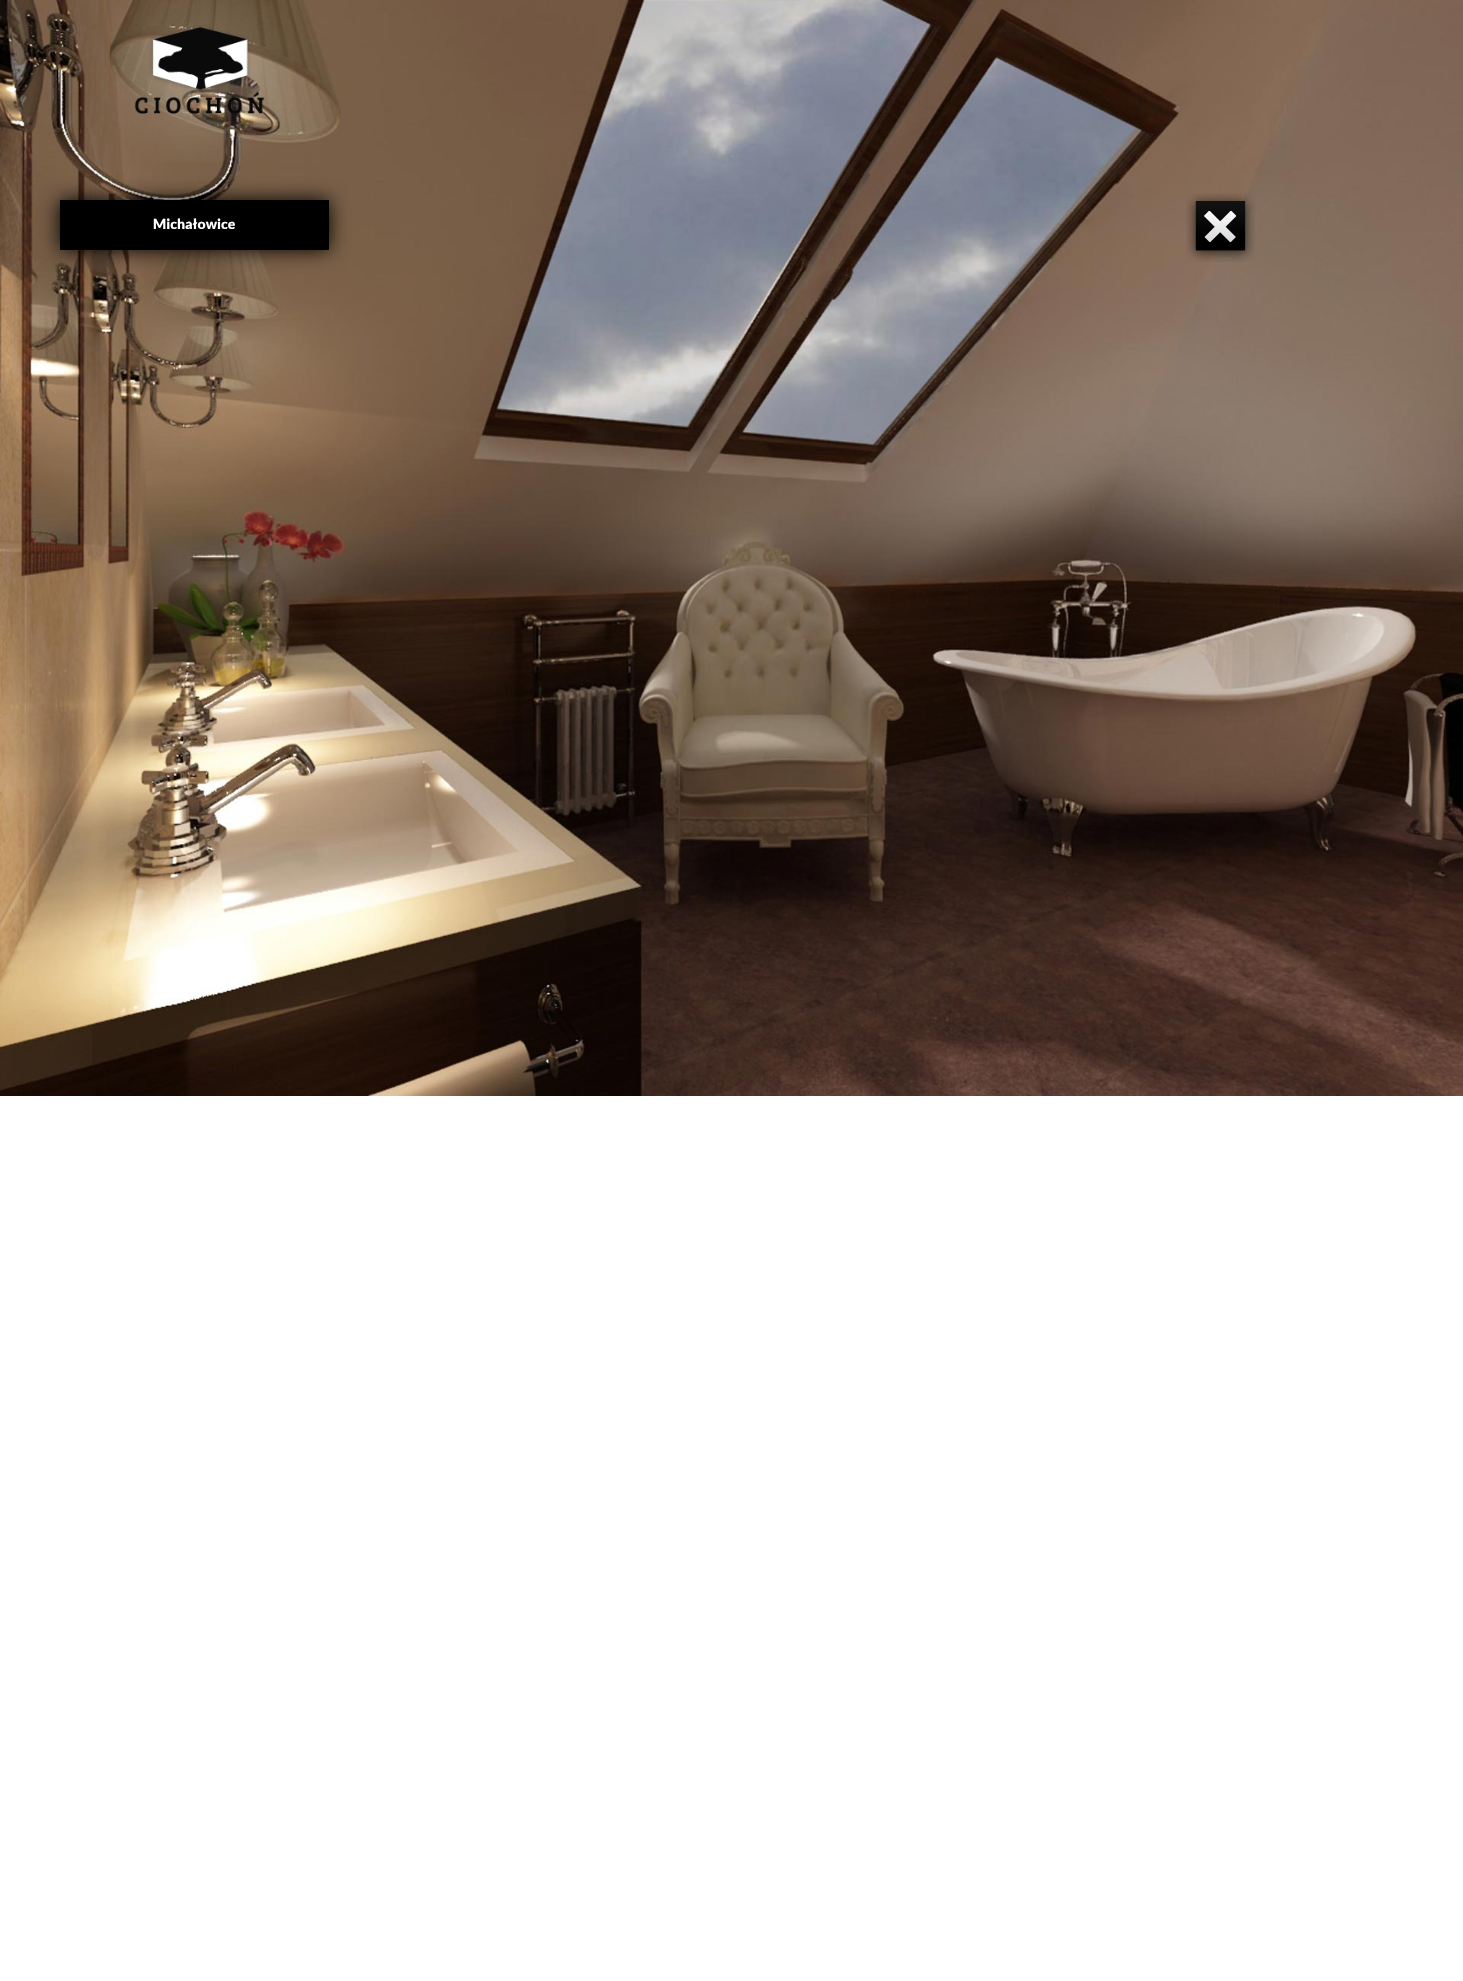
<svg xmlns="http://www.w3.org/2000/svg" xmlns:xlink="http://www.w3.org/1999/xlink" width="1463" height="1981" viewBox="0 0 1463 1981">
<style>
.cls-1{font:900 14px Lato;fill:#ffffff}
</style>
<rect width="100%" height="100%" fill="#ffffff"/>
<image xlink:href="image0.png" x="0" y="0" width="1463" height="1096"/>
<image xlink:href="image1.png" x="106" y="0" width="188" height="162"/>
<rect fill="#000000" filter="blur(10px)" x="60" y="200" width="269" height="50"/>
<rect fill="#000000" x="60" y="200" width="269" height="50"/>
<image xlink:href="image2.png" x="1186" y="193" width="69" height="69"/>
<text class="cls-1" x="153" y="229">Michałowice</text>
</svg>
